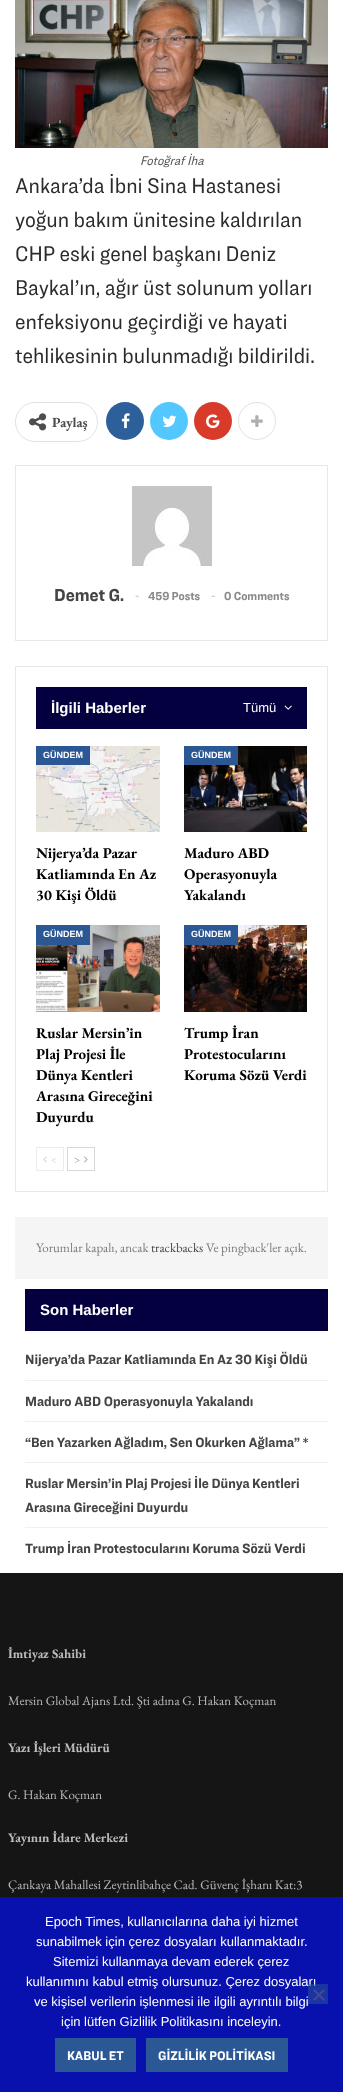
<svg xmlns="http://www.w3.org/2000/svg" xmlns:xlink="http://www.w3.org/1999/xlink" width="343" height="2092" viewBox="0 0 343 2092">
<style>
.cls-1{font:italic 13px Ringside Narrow;fill:#545454}
.cls-2{font:22px Ringside Narrow;fill:#2b2b2b}
.cls-3{font:bold 14px EB Garamond;fill:#4d4d4d}
.cls-4{font:bold 18px Ringside Narrow;fill:#444444}
.cls-5{font:bold 12px Ringside Narrow;fill:#d0d0d0}
.cls-6{font:bold 12px Ringside Narrow;fill:#8a8a8a}
.cls-7{font:bold 15px Liberation Sans;fill:#ffffff}
.cls-8{font:13px Liberation Sans;fill:#ffffff}
.cls-9{font:bold 9px Liberation Sans;fill:#ffffff}
.cls-10{font:bold 15px EB Garamond;fill:#000000}
.cls-11{font:11px EB Garamond;fill:#d0d0d0}
.cls-12{font:11px EB Garamond;fill:#9e9e9e}
.cls-13{font:13px EB Garamond;fill:#7b7b7b}
.cls-14{font:13px EB Garamond;fill:#444444}
.cls-15{font:bold 14px Ringside Narrow;fill:#444444}
.cls-16{font:bold 13px EB Garamond;fill:#bbbbbb}
.cls-17{font:13px EB Garamond;fill:#bbbbbb}
.cls-18{font:bold 13px Ringside Narrow;fill:#ffffff}
</style>
<rect width="100%" height="100%" fill="#ffffff"/>
<image xlink:href="image0.png" x="15" y="0" width="313" height="148"/>
<rect fill="none" stroke="#e2e2e2" x="15.5" y="402.5" width="82" height="39" rx="19.5"/>
<image xlink:href="image1.png" x="29" y="413" width="18" height="18"/>
<circle fill="#2d5f9a" cx="125" cy="421" r="19"/>
<image xlink:href="image2.png" x="121" y="413" width="9" height="16"/>
<circle fill="#53c7ff" cx="169" cy="421" r="19"/>
<image xlink:href="image3.png" x="162" y="415" width="15" height="12"/>
<circle fill="#d93b2b" cx="213" cy="421" r="19"/>
<image xlink:href="image4.png" x="206" y="414" width="14" height="15"/>
<circle fill="none" stroke="#e2e2e2" cx="257" cy="421" r="18.5"/>
<image xlink:href="image5.png" x="251" y="415" width="12" height="12"/>
<rect fill="none" stroke="#e8e8e8" x="15.5" y="465.5" width="312" height="175"/>
<image xlink:href="image6.png" x="132" y="486" width="80" height="80"/>
<rect fill="none" stroke="#e8e8e8" x="15.5" y="666.5" width="312" height="525"/>
<rect fill="#04003f" x="36" y="687" width="271" height="42"/>
<image xlink:href="image7.png" x="284" y="705" width="8" height="5"/>
<image xlink:href="image8.png" x="36" y="746" width="124" height="86"/>
<rect fill="#2c5795" x="36" y="746" width="54" height="19"/>
<image xlink:href="image9.png" x="184" y="746" width="123" height="86"/>
<rect fill="#2c5795" x="184" y="746" width="54" height="19"/>
<image xlink:href="image10.png" x="36" y="925" width="124" height="87"/>
<rect fill="#2c5795" x="36" y="925" width="54" height="20"/>
<image xlink:href="image11.png" x="184" y="925" width="123" height="87"/>
<rect fill="#2c5795" x="184" y="925" width="54" height="20"/>
<rect fill="none" stroke="#ececec" x="36.5" y="1147.5" width="27" height="23"/>
<image xlink:href="image12.png" x="43" y="1156" width="4" height="7"/>
<rect fill="none" stroke="#d8d8d8" x="67.5" y="1147.5" width="27" height="23"/>
<image xlink:href="image13.png" x="84" y="1156" width="4" height="7"/>
<rect fill="#f5f5f5" x="15" y="1217" width="313" height="62"/>
<rect fill="#04003f" x="25" y="1289" width="303" height="42"/>
<rect fill="#f0f0f0" x="25" y="1380" width="303" height="1"/>
<rect fill="#f0f0f0" x="25" y="1421" width="303" height="1"/>
<rect fill="#f0f0f0" x="25" y="1462" width="303" height="1"/>
<rect fill="#f0f0f0" x="25" y="1527" width="303" height="1"/>
<rect fill="#151515" x="0" y="1573" width="343" height="324"/>
<rect fill="#0810ad" x="0" y="1897" width="343" height="195"/>
<rect fill="#2c5795" x="55" y="2038" width="81" height="34"/>
<rect fill="#2c5795" x="146" y="2038" width="142" height="34"/>
<text class="cls-1" x="140" y="165">Fotoğraf İha</text>
<text class="cls-2"><tspan x="15" y="193">Ankara’da İbni Sina Hastanesi</tspan><tspan x="15" y="227">yoğun bakım ünitesine kaldırılan</tspan><tspan x="15" y="261">CHP eski genel başkanı Deniz</tspan><tspan x="15" y="295">Baykal’ın, ağır üst solunum yolları</tspan><tspan x="15" y="329">enfeksiyonu geçirdiği ve hayati</tspan><tspan x="15" y="363">tehlikesinin bulunmadığı bildirildi.</tspan></text>
<text class="cls-3" x="52" y="427">Paylaş</text>
<text class="cls-4" x="54" y="601">Demet G.</text>
<text class="cls-5" x="135" y="600">-</text>
<text class="cls-6" x="148" y="600">459 Posts</text>
<text class="cls-5" x="211" y="600">-</text>
<text class="cls-6" x="224" y="600">0 Comments</text>
<text class="cls-7" x="51" y="713">İlgili Haberler</text>
<text class="cls-8" x="243" y="712">Tümü</text>
<text class="cls-9" x="43" y="758">GÜNDEM</text>
<text class="cls-10"><tspan x="36" y="858">Nijerya’da Pazar</tspan><tspan x="36" y="879">Katliamında En Az</tspan><tspan x="36" y="900">30 Kişi Öldü</tspan></text>
<text class="cls-9" x="191" y="758">GÜNDEM</text>
<text class="cls-10"><tspan x="184" y="858">Maduro ABD</tspan><tspan x="184" y="879">Operasyonuyla</tspan><tspan x="184" y="900">Yakalandı</tspan></text>
<text class="cls-9" x="43" y="937">GÜNDEM</text>
<text class="cls-10"><tspan x="36" y="1038">Ruslar Mersin’in</tspan><tspan x="36" y="1059">Plaj Projesi İle</tspan><tspan x="36" y="1080">Dünya Kentleri</tspan><tspan x="36" y="1101">Arasına Gireceğini</tspan><tspan x="36" y="1122">Duyurdu</tspan></text>
<text class="cls-9" x="191" y="937">GÜNDEM</text>
<text class="cls-10"><tspan x="184" y="1038">Trump İran</tspan><tspan x="184" y="1059">Protestocularını</tspan><tspan x="184" y="1080">Koruma Sözü Verdi</tspan></text>
<text class="cls-11" x="51" y="1163">&lt;</text>
<text class="cls-12" x="74" y="1163">&gt;</text>
<text class="cls-13" x="36" y="1252">Yorumlar kapalı, ancak</text>
<text class="cls-14" x="151" y="1252">trackbacks</text>
<text class="cls-13" x="206" y="1252">Ve pingback'ler açık.</text>
<text class="cls-7" x="40" y="1315">Son Haberler</text>
<text class="cls-15" x="25" y="1364">Nijerya’da Pazar Katliamında En Az 30 Kişi Öldü</text>
<text class="cls-15" x="25" y="1406">Maduro ABD Operasyonuyla Yakalandı</text>
<text class="cls-15" x="25" y="1447">“Ben Yazarken Ağladım, Sen Okurken Ağlama” *</text>
<text class="cls-15"><tspan x="25" y="1488">Ruslar Mersin’in Plaj Projesi İle Dünya Kentleri</tspan><tspan x="25" y="1512">Arasına Gireceğini Duyurdu</tspan></text>
<text class="cls-15" x="25" y="1553">Trump İran Protestocularını Koruma Sözü Verdi</text>
<text class="cls-16" x="8" y="1658">İmtiyaz Sahibi</text>
<text class="cls-17" x="8" y="1705">Mersin Global Ajans Ltd. Şti adına G. Hakan Koçman</text>
<text class="cls-16" x="8" y="1752">Yazı İşleri Müdürü</text>
<text class="cls-17" x="8" y="1799">G. Hakan Koçman</text>
<text class="cls-16" x="8" y="1842">Yayının İdare Merkezi</text>
<text class="cls-17" x="8" y="1889">Çankaya Mahallesi Zeytinlibahçe Cad. Güvenç İşhanı Kat:3</text>
<text class="cls-8" x="45" y="1926">Epoch Times, kullanıcılarına daha iyi hizmet</text>
<text class="cls-8" x="36" y="1946">sunabilmek için çerez dosyaları kullanmaktadır.</text>
<text class="cls-8" x="53" y="1966">Sitemizi kullanmaya devam ederek çerez</text>
<text class="cls-8" x="26" y="1986">kullanımını kabul etmiş olursunuz. Çerez dosyaları</text>
<text class="cls-8" x="34" y="2006">ve kişisel verilerin işlenmesi ile ilgili ayrıntılı bilgi</text>
<text class="cls-8" x="61" y="2026">için lütfen Gizlilik Politikasını inceleyin.</text>
<rect fill="#2c5795" fill-opacity="0.5" x="308" y="1984" width="20" height="20"/>
<path fill="#444897" d="M323.5 1989L325 1990.5L314.5 2001L313 1999.5Z"/>
<path fill="#444897" d="M313 1990.5L314.5 1989L325 1999.5L323.5 2001Z"/>
<text class="cls-18" x="67" y="2060">KABUL ET</text>
<text class="cls-18" x="158" y="2060">GİZLİLİK POLİTİKASI</text>
</svg>
